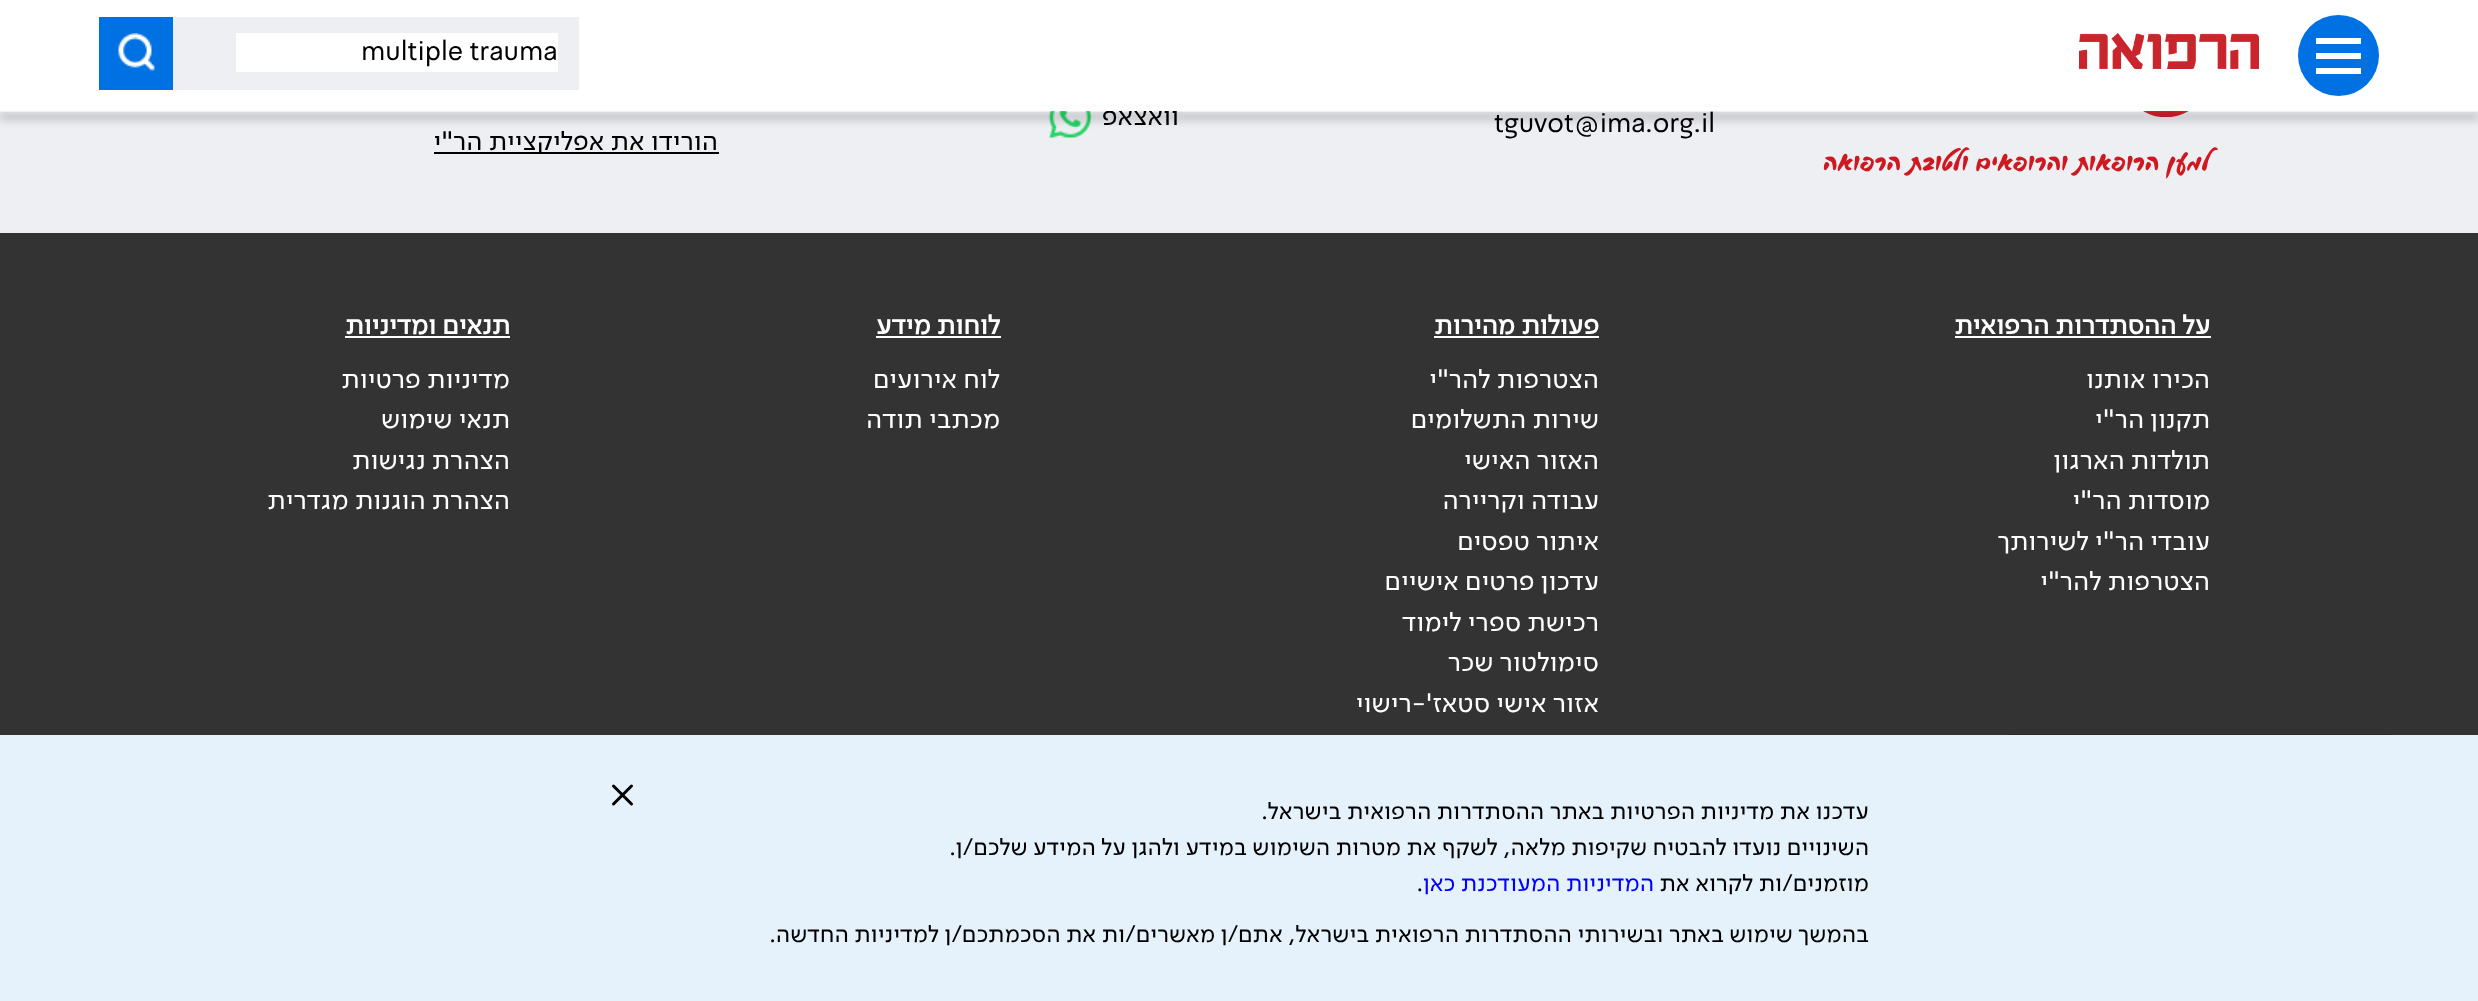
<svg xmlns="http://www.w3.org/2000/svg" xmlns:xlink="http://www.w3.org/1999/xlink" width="2478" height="1001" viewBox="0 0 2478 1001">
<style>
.cls-1{font:27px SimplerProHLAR;fill:#000000}
.cls-2{font:36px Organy;direction:rtl;fill:#ce1921}
.cls-3{font:27px SimplerProHLAR;direction:rtl;fill:#000000}
.cls-4{font:bold 27px SimplerProHLAR;direction:rtl;fill:#ffffff}
.cls-5{font:27px SimplerProHLAR;direction:rtl;fill:#ffffff}
.cls-6{font:24px SimplerProHLAR;direction:rtl;fill:#000000}
.cls-7{font:24px SimplerProHLAR;direction:rtl;fill:#0000ff}
.cls-8{font:24px SimplerProHLAR;fill:#000000}
</style>
<defs>
<linearGradient id="g1" gradientUnits="userSpaceOnUse" x1="2200" y1="734" x2="2200" y2="957"><stop offset="0" stop-color="#2f2929"/><stop offset="1" stop-color="#111111"/></linearGradient>
<clipPath id="clip1"><path d="M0 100H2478V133H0ZM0 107H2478V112H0Z" clip-rule="evenodd"/></clipPath>
</defs>
<rect width="100%" height="100%" fill="#eeeff3"/>
<image xlink:href="image2.png" x="2143" y="111" width="46" height="6"/>
<image xlink:href="image3.png" x="1048" y="111" width="44" height="27"/>
<rect fill="#000000" x="434" y="152" width="285" height="2"/>
<rect fill="#333333" x="0" y="233" width="2478" height="502"/>
<rect fill="#ffffff" x="1955" y="336" width="256" height="2"/>
<rect fill="#ffffff" x="1434" y="336" width="165" height="2"/>
<rect fill="#ffffff" x="876" y="336" width="125" height="2"/>
<rect fill="#ffffff" x="345" y="336" width="165" height="2"/>
<rect fill="url(#g1)" x="1997" y="734" width="406" height="223" rx="17"/>
<rect fill="#e5f1fb" x="0" y="735" width="2478" height="266"/>
<path fill="none" stroke="#000000" stroke-width="3" stroke-linecap="round" stroke-linejoin="round" d="M631.5 786L613.5 804M613.5 786L631.5 804"/>
<text class="cls-1" x="1494" y="132">tguvot@ima.org.il</text>
<text class="cls-2" x="2210" y="170">למען הרופאות והרופאים ולטובת הרפואה</text>
<text class="cls-3" x="1179" y="125">וואצאפ</text>
<rect fill="#ffffff" x="0" y="0" width="2478" height="111"/>
<g clip-path="url(#clip1)">
<rect fill="#000000" fill-opacity="0.2" filter="blur(4px)" x="-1" y="113" width="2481" height="7"/>
</g>
<circle fill="#0071e2" cx="2338.5" cy="55.5" r="40.5"/>
<rect fill="#ffffff" x="2316" y="53" width="45" height="6"/>
<rect fill="#ffffff" x="2316" y="38" width="45" height="6"/>
<rect fill="#ffffff" x="2316" y="68" width="45" height="6"/>
<rect fill="#0071e2" x="99" y="17" width="74" height="73"/>
<image xlink:href="image1.png" x="118" y="33" width="37" height="38"/>
<rect fill="#eeeff3" x="173" y="17" width="406" height="73"/>
<rect fill="#ffffff" x="236" y="33" width="322" height="39"/>
<text class="cls-1" x="361" y="60">multiple trauma</text>
<image xlink:href="image0.png" x="2079" y="33" width="180" height="36"/>
<text class="cls-3" x="718" y="150">הורידו את אפליקציית הר"י</text>
<text class="cls-4" x="2210" y="334">על ההסתדרות הרפואית</text>
<text class="cls-5"><tspan x="2210" y="388">הכירו אותנו</tspan><tspan x="2210" y="428">תקנון הר"י</tspan><tspan x="2210" y="469">תולדות הארגון</tspan><tspan x="2210" y="509">מוסדות הר"י</tspan><tspan x="2210" y="550">עובדי הר"י לשירותך</tspan><tspan x="2210" y="590">הצטרפות להר"י</tspan></text>
<text class="cls-4" x="1599" y="334">פעולות מהירות</text>
<text class="cls-5"><tspan x="1599" y="388">הצטרפות להר"י</tspan><tspan x="1599" y="428">שירות התשלומים</tspan><tspan x="1599" y="469">האזור האישי</tspan><tspan x="1599" y="509">עבודה וקריירה</tspan><tspan x="1599" y="550">איתור טפסים</tspan><tspan x="1599" y="590">עדכון פרטים אישיים</tspan><tspan x="1599" y="631">רכישת ספרי לימוד</tspan><tspan x="1599" y="671">סימולטור שכר</tspan><tspan x="1599" y="712">אזור אישי סטאז'-רישוי</tspan></text>
<text class="cls-4" x="1000" y="334">לוחות מידע</text>
<text class="cls-5"><tspan x="1000" y="388">לוח אירועים</tspan><tspan x="1000" y="428">מכתבי תודה</tspan></text>
<text class="cls-4" x="510" y="334">תנאים ומדיניות</text>
<text class="cls-5"><tspan x="510" y="388">מדיניות פרטיות</tspan><tspan x="510" y="428">תנאי שימוש</tspan><tspan x="510" y="469">הצהרת נגישות</tspan><tspan x="510" y="509">הצהרת הוגנות מגדרית</tspan></text>
<text class="cls-6"><tspan x="1869" y="819">עדכנו את מדיניות הפרטיות באתר ההסתדרות הרפואית בישראל.</tspan><tspan x="1869" y="855">השינויים נועדו להבטיח שקיפות מלאה, לשקף את מטרות השימוש במידע ולהגן על המידע שלכם/ן.</tspan><tspan x="1869" y="891">מוזמנים/ות לקרוא את</tspan></text>
<text class="cls-7" x="1654" y="891">המדיניות המעודכנת כאן</text>
<text class="cls-8" x="1417" y="891">.</text>
<text class="cls-6" x="1869" y="942">בהמשך שימוש באתר ובשירותי ההסתדרות הרפואית בישראל, אתם/ן מאשרים/ות את הסכמתכם/ן למדיניות החדשה.</text>
</svg>
